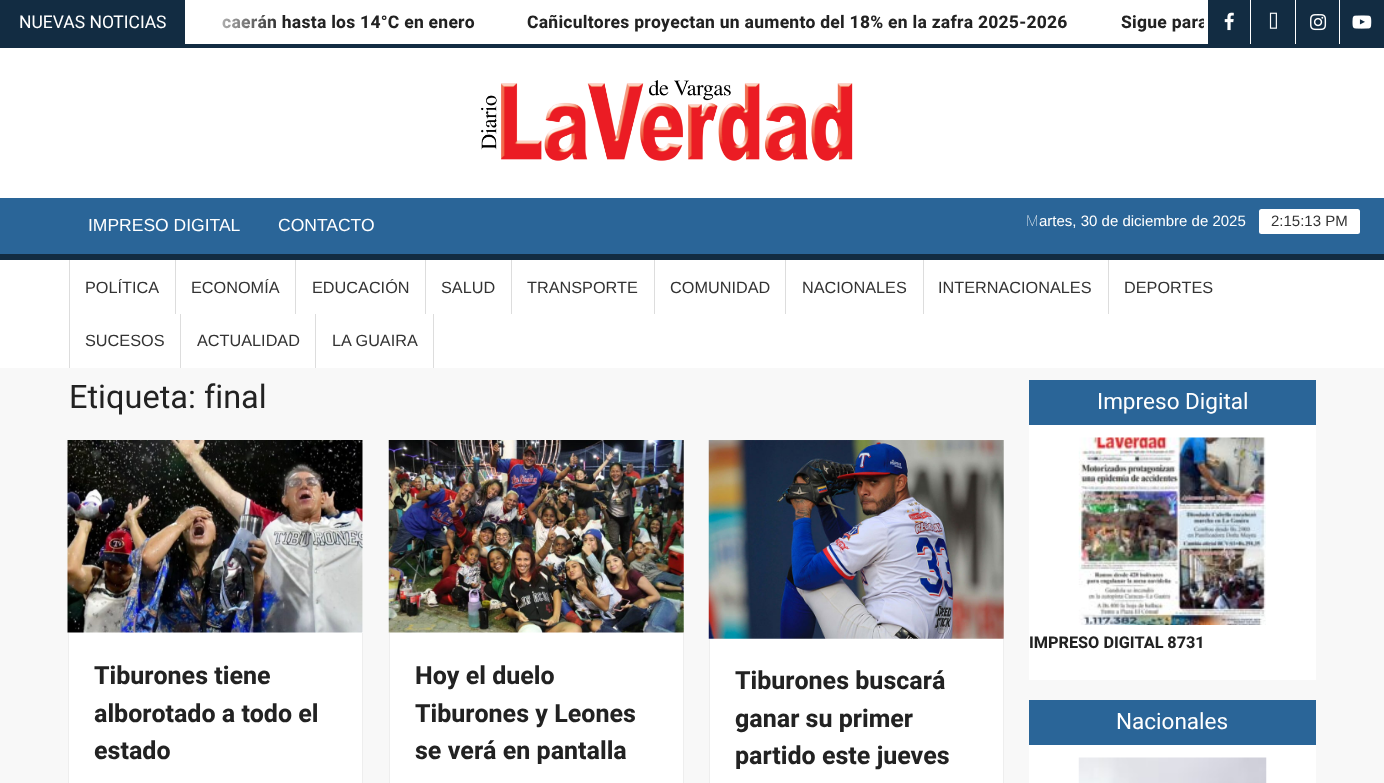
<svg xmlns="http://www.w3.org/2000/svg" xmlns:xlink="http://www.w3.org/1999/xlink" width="1384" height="783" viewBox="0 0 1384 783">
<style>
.cls-1{font:17.5px Heebo;fill:#ffffff}
.cls-2{font:bold 17.5px Heebo;letter-spacing:0.25px;fill:#222222}
.cls-3{font:17.5px Arimo;fill:#ffffff}
.cls-4{font:100 15px Noto Sans;fill:#ffffff}
.cls-5{font:15px Arimo;fill:#ffffff}
.cls-6{font:15px Arimo;fill:#333333}
.cls-7{font:16.25px Arimo;fill:#333333}
.cls-8{font:32.5px Heebo;fill:#222222}
.cls-9{font:bold 25px Heebo;fill:#222222}
.cls-10{font:22.5px Heebo;fill:#ffffff}
.cls-11{font:bold 16.25px Heebo;fill:#222222}
</style>
<defs>
<linearGradient id="g1" gradientUnits="userSpaceOnUse" x1="185" y1="22" x2="285" y2="22"><stop offset="0" stop-color="#ffffff"/><stop offset="1" stop-color="#ffffff" stop-opacity="0"/></linearGradient>
<clipPath id="clip1"><rect x="0" y="0" width="1204" height="44"/></clipPath>
</defs>
<rect width="100%" height="100%" fill="#f8f8f8"/>
<rect fill="#ffffff" x="186" y="0" width="1022" height="44"/>
<rect fill="#122c42" x="0" y="0" width="185" height="44"/>
<rect fill="#122c42" x="1208" y="0" width="42" height="44"/>
<image xlink:href="image0.png" x="1224" y="12" width="10" height="19"/>
<rect fill="#ffffff" x="1250" y="0" width="1" height="44"/>
<rect fill="#122c42" x="1251" y="0" width="44" height="44"/>
<image xlink:href="image1.png" x="1269" y="12" width="8" height="17"/>
<rect fill="#ffffff" x="1295" y="0" width="1" height="44"/>
<rect fill="#122c42" x="1296" y="0" width="43" height="44"/>
<image xlink:href="image2.png" x="1310" y="14" width="17" height="17"/>
<rect fill="#ffffff" x="1339" y="0" width="1" height="44"/>
<rect fill="#122c42" x="1340" y="0" width="44" height="44"/>
<image xlink:href="image3.png" x="1352" y="15" width="20" height="14"/>
<rect fill="#122c42" x="0" y="44" width="1384" height="4"/>
<rect fill="#ffffff" x="0" y="48" width="1384" height="150"/>
<image xlink:href="image4.png" x="481" y="80" width="372" height="81"/>
<rect fill="#122c42" x="0" y="254" width="1384" height="6"/>
<rect fill="#2a6598" x="0" y="198" width="1384" height="56"/>
<rect fill="#ffffff" x="1259" y="209" width="101" height="25" rx="2.5"/>
<rect fill="#ffffff" x="0" y="260" width="1384" height="108"/>
<rect fill="#dddddd" x="69" y="260" width="1" height="108"/>
<rect fill="#dddddd" x="175" y="260" width="1" height="54"/>
<rect fill="#dddddd" x="295" y="260" width="1" height="54"/>
<rect fill="#dddddd" x="425" y="260" width="1" height="54"/>
<rect fill="#dddddd" x="511" y="260" width="1" height="54"/>
<rect fill="#dddddd" x="654" y="260" width="1" height="54"/>
<rect fill="#dddddd" x="785" y="260" width="1" height="54"/>
<rect fill="#dddddd" x="923" y="260" width="1" height="54"/>
<rect fill="#dddddd" x="1108" y="260" width="1" height="54"/>
<rect fill="#dddddd" x="180" y="314" width="1" height="54"/>
<rect fill="#dddddd" x="433" y="314" width="1" height="54"/>
<rect fill="#dddddd" x="315" y="314" width="1" height="54"/>
<rect fill="#ffffff" x="69" y="633" width="293" height="150"/>
<rect fill="none" stroke="#eeeeee" x="68.5" y="631.5" width="294" height="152"/>
<rect fill="#ffffff" x="68" y="440" width="295" height="193"/>
<image xlink:href="image5.png" x="67" y="440" width="296" height="193"/>
<rect fill="#ffffff" x="390" y="633" width="293" height="150"/>
<rect fill="none" stroke="#eeeeee" x="389.5" y="631.5" width="294" height="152"/>
<rect fill="#ffffff" x="389" y="440" width="295" height="193"/>
<image xlink:href="image6.png" x="388" y="440" width="296" height="193"/>
<rect fill="#ffffff" stroke="#eeeeee" x="709.5" y="638.5" width="294" height="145"/>
<rect fill="#ffffff" x="709" y="440" width="295" height="199"/>
<image xlink:href="image7.png" x="708" y="440" width="296" height="199"/>
<rect fill="#ffffff" x="1029" y="425" width="287" height="255"/>
<rect fill="#2a6598" x="1029" y="380" width="287" height="45"/>
<image xlink:href="image8.png" x="1078" y="437" width="188" height="188"/>
<rect fill="#ffffff" x="1029" y="745" width="287" height="38"/>
<rect fill="#2a6598" x="1029" y="700" width="287" height="45"/>
<image xlink:href="image9.png" x="1078" y="757" width="189" height="26"/>
<text class="cls-1" x="19" y="28">NUEVAS NOTICIAS</text>
<text class="cls-2" x="222" y="28">caerán hasta los 14°C en enero</text>
<rect fill="url(#g1)" x="185" y="0" width="98" height="44"/>
<text class="cls-2" x="527" y="28">Cañicultores proyectan un aumento del 18% en la zafra 2025-2026</text>
<g clip-path="url(#clip1)">
<text class="cls-2" x="1121" y="28">Sigue para</text>
</g>
<text class="cls-3" x="88" y="231">IMPRESO DIGITAL</text>
<text class="cls-3" x="278" y="231">CONTACTO</text>
<text class="cls-4" x="1026" y="226">M</text>
<text class="cls-5" x="1039" y="226">artes, 30 de diciembre de 2025</text>
<text class="cls-6" x="1271" y="226">2:15:13 PM</text>
<text class="cls-7" x="85" y="293">POLÍTICA</text>
<text class="cls-7" x="191" y="293">ECONOMÍA</text>
<text class="cls-7" x="312" y="293">EDUCACIÓN</text>
<text class="cls-7" x="441" y="293">SALUD</text>
<text class="cls-7" x="527" y="293">TRANSPORTE</text>
<text class="cls-7" x="670" y="293">COMUNIDAD</text>
<text class="cls-7" x="802" y="293">NACIONALES</text>
<text class="cls-7" x="938" y="293">INTERNACIONALES</text>
<text class="cls-7" x="1124" y="293">DEPORTES</text>
<text class="cls-7" x="85" y="346">SUCESOS</text>
<text class="cls-7" x="197" y="346">ACTUALIDAD</text>
<text class="cls-7" x="332" y="346">LA GUAIRA</text>
<text class="cls-8" x="69" y="408">Etiqueta: final</text>
<text class="cls-9"><tspan x="94" y="684">Tiburones tiene</tspan><tspan x="94" y="722">alborotado a todo el</tspan><tspan x="94" y="759">estado</tspan></text>
<text class="cls-9"><tspan x="415" y="684">Hoy el duelo</tspan><tspan x="415" y="722">Tiburones y Leones</tspan><tspan x="415" y="759">se verá en pantalla</tspan></text>
<text class="cls-9"><tspan x="735" y="689">Tiburones buscará</tspan><tspan x="735" y="727">ganar su primer</tspan><tspan x="735" y="764">partido este jueves</tspan></text>
<text class="cls-10" x="1097" y="409">Impreso Digital</text>
<text class="cls-11" x="1029" y="648">IMPRESO DIGITAL 8731</text>
<text class="cls-10" x="1116" y="729">Nacionales</text>
</svg>
